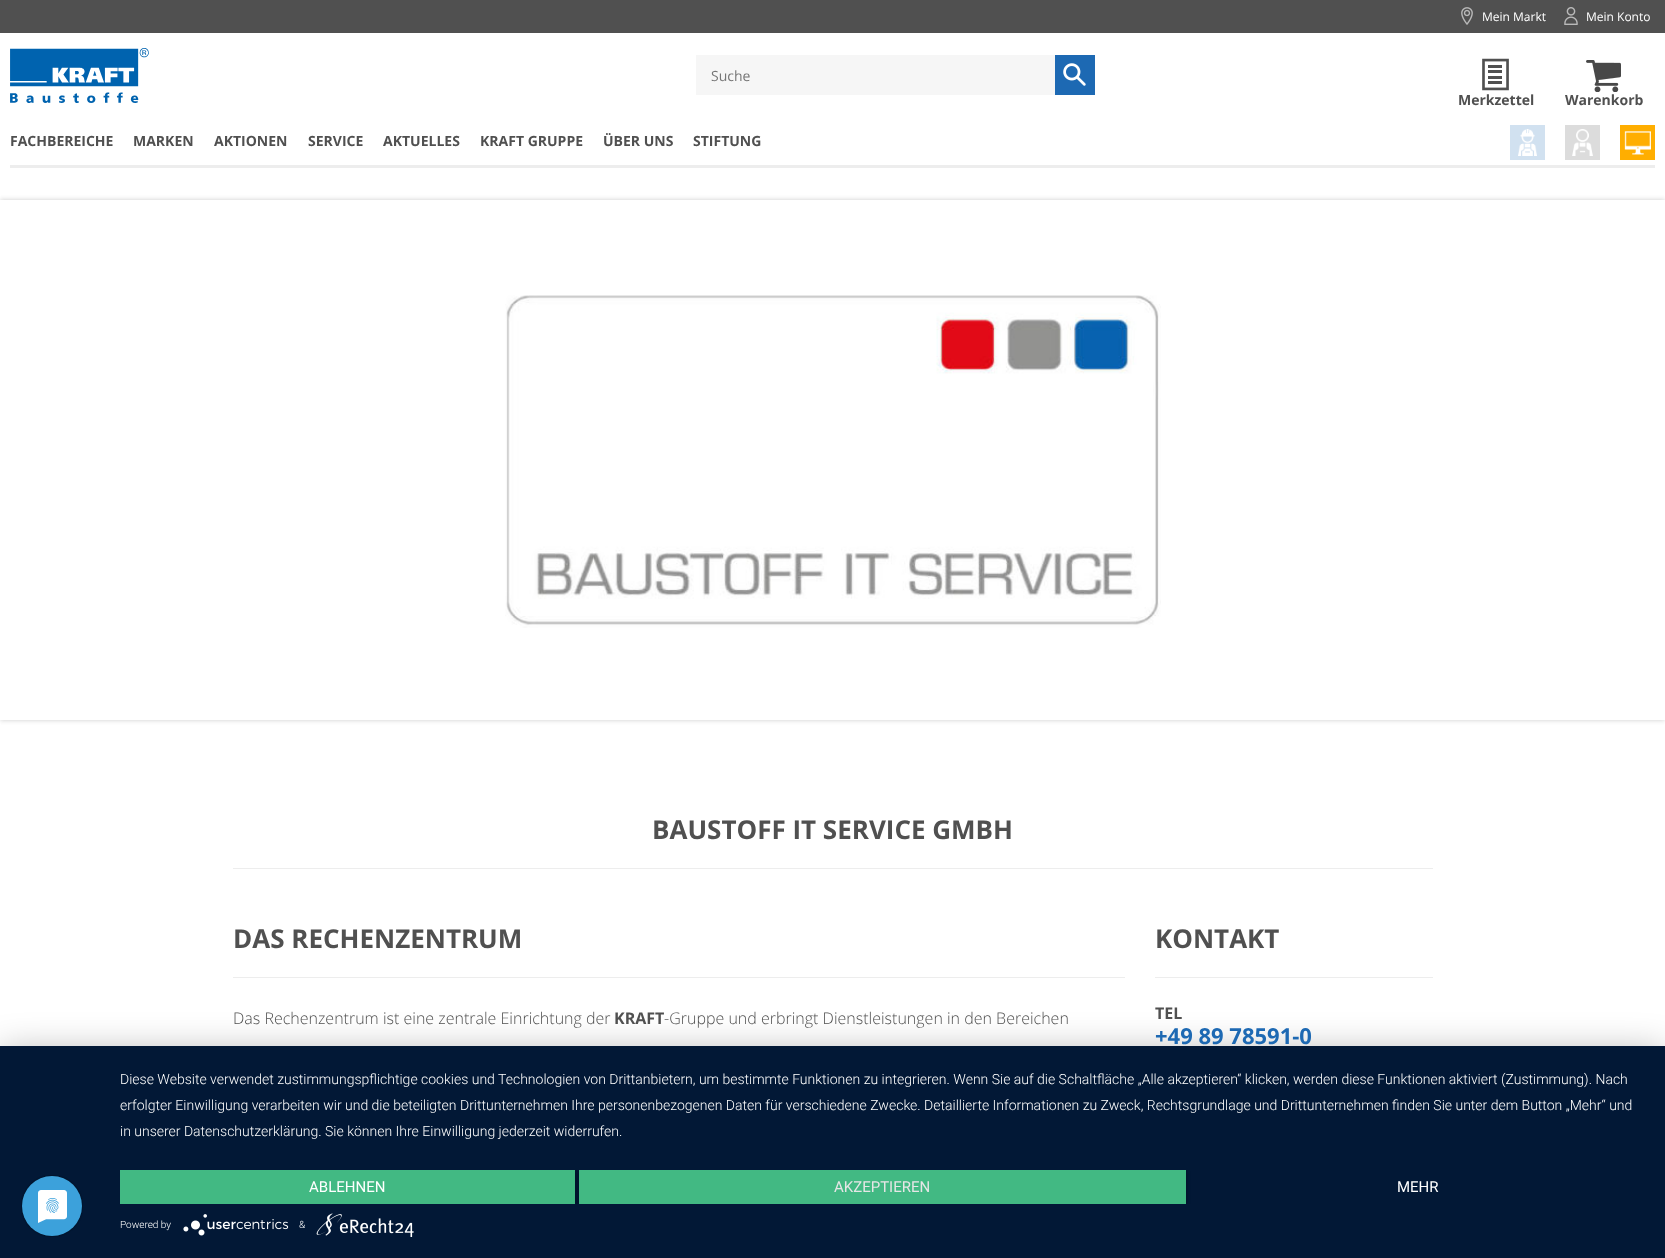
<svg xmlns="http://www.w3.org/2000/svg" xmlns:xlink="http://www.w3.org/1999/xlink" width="1665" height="1258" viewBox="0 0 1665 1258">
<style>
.cls-1{font:12px Open Sans;fill:#ffffff}
.cls-2{font:14px Open Sans;fill:#767676}
.cls-3{font:bold 14px Open Sans;fill:#505050}
.cls-4{font:bold 26px Open Sans;fill:#505050}
.cls-5{font:300 16px Open Sans;fill:#505050}
.cls-6{font:bold 16px Open Sans;fill:#505050}
.cls-7{font:bold 22px Open Sans;fill:#1d69b3}
.cls-8{font:300 14px Roboto;fill:#ffffff}
.cls-9{font:15px Roboto;fill:#ffffff}
.cls-10{font:15px Roboto;fill:#e6e6e6}
.cls-11{font:300 10px Roboto;fill:#ffffff}
</style>
<defs>
<clipPath id="clip1"><path d="M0 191H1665V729H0ZM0 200H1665V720H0Z" clip-rule="evenodd"/></clipPath>
<clipPath id="clip2"><rect x="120" y="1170" width="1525" height="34"/></clipPath>
</defs>
<rect width="100%" height="100%" fill="#ffffff"/>
<rect fill="#505050" x="0" y="0" width="1665" height="33"/>
<image xlink:href="image0.png" x="1461" y="7" width="12" height="18"/>
<image xlink:href="image1.png" x="1564" y="7" width="14" height="18"/>
<image xlink:href="image2.png" x="10" y="48" width="139" height="55"/>
<rect fill="#f6f6f6" x="696" y="55" width="359" height="40"/>
<rect fill="#1d69b3" x="1055" y="55" width="40" height="40"/>
<image xlink:href="image3.png" x="1063" y="63" width="23" height="23"/>
<image xlink:href="image4.png" x="1482" y="58" width="27" height="33"/>
<image xlink:href="image5.png" x="1586" y="60" width="35" height="32"/>
<rect fill="#ededed" x="10" y="165" width="1645" height="3"/>
<image xlink:href="image6.png" x="1510" y="125" width="35" height="35"/>
<image xlink:href="image7.png" x="1565" y="125" width="35" height="35"/>
<image xlink:href="image8.png" x="1620" y="125" width="35" height="35"/>
<g clip-path="url(#clip1)">
<rect fill="#000000" fill-opacity="0.1" filter="blur(2.5px)" x="0" y="200" width="1665" height="520"/>
<rect fill="#000000" fill-opacity="0.1" filter="blur(2.5px)" x="0" y="200" width="1665" height="520"/>
</g>
<image xlink:href="image9.png" x="505" y="295" width="656" height="333"/>
<rect fill="#ededed" x="233" y="868" width="1200" height="1"/>
<rect fill="#ededed" x="233" y="977" width="892" height="1"/>
<rect fill="#ededed" x="1155" y="977" width="278" height="1"/>
<rect fill="#000000" fill-opacity="0.3" filter="blur(18px)" x="0" y="1052" width="1665" height="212"/>
<rect fill="#021836" x="0" y="1046" width="1665" height="212"/>
<image xlink:href="image10.png" x="21" y="1175" width="62" height="62"/>
<g clip-path="url(#clip2)">
<rect fill="#000000" fill-opacity="0.4" filter="blur(2px)" x="120" y="1171" width="455" height="34"/>
</g>
<rect fill="#42b983" x="120" y="1170" width="455" height="34"/>
<g clip-path="url(#clip2)">
<rect fill="#000000" fill-opacity="0.4" filter="blur(2px)" x="579" y="1171" width="607" height="34"/>
</g>
<rect fill="#42b983" x="579" y="1170" width="607" height="34"/>
<image xlink:href="image11.png" x="183" y="1214" width="106" height="22"/>
<image xlink:href="image12.png" x="316" y="1213" width="98" height="24"/>
<text class="cls-1" x="1482" y="21">Mein Markt</text>
<text class="cls-1" x="1586" y="21">Mein Konto</text>
<text class="cls-2" x="711" y="81">Suche</text>
<text class="cls-3" x="1458" y="105">Merkzettel</text>
<text class="cls-3" x="1565" y="105">Warenkorb</text>
<text class="cls-3" x="10" y="146">FACHBEREICHE</text>
<text class="cls-3" x="133" y="146">MARKEN</text>
<text class="cls-3" x="214" y="146">AKTIONEN</text>
<text class="cls-3" x="308" y="146">SERVICE</text>
<text class="cls-3" x="383" y="146">AKTUELLES</text>
<text class="cls-3" x="480" y="146">KRAFT GRUPPE</text>
<text class="cls-3" x="603" y="146">ÜBER UNS</text>
<text class="cls-3" x="693" y="146">STIFTUNG</text>
<text class="cls-4" x="652" y="839">BAUSTOFF IT SERVICE GMBH</text>
<text class="cls-4" x="233" y="948">DAS RECHENZENTRUM</text>
<text class="cls-5" x="233" y="1024">Das Rechenzentrum ist eine zentrale Einrichtung der</text>
<text class="cls-6" x="614" y="1024">KRAFT</text>
<text class="cls-5" x="664" y="1024">-Gruppe und erbringt Dienstleistungen in den Bereichen</text>
<text class="cls-4" x="1155" y="948">KONTAKT</text>
<text class="cls-6" x="1155" y="1019">TEL</text>
<text class="cls-7" x="1155" y="1044">+49 89 78591-0</text>
<text class="cls-8"><tspan x="120" y="1084">Diese Website verwendet zustimmungspflichtige cookies und Technologien von Drittanbietern, um bestimmte Funktionen zu integrieren. Wenn Sie auf die Schaltfläche „Alle akzeptieren“ klicken, werden diese Funktionen aktiviert (Zustimmung). Nach</tspan><tspan x="120" y="1110">erfolgter Einwilligung verarbeiten wir und die beteiligten Drittunternehmen Ihre personenbezogenen Daten für verschiedene Zwecke. Detaillierte Informationen zu Zweck, Rechtsgrundlage und Drittunternehmen finden Sie unter dem Button „Mehr“ und</tspan><tspan x="120" y="1136">in unserer Datenschutzerklärung. Sie können Ihre Einwilligung jederzeit widerrufen.</tspan></text>
<text class="cls-9" x="309" y="1192">ABLEHNEN</text>
<text class="cls-10" x="834" y="1192">AKZEPTIEREN</text>
<text class="cls-9" x="1397" y="1192">MEHR</text>
<text class="cls-11" x="120" y="1228">Powered by</text>
<text class="cls-11" x="299" y="1228">&amp;</text>
</svg>
